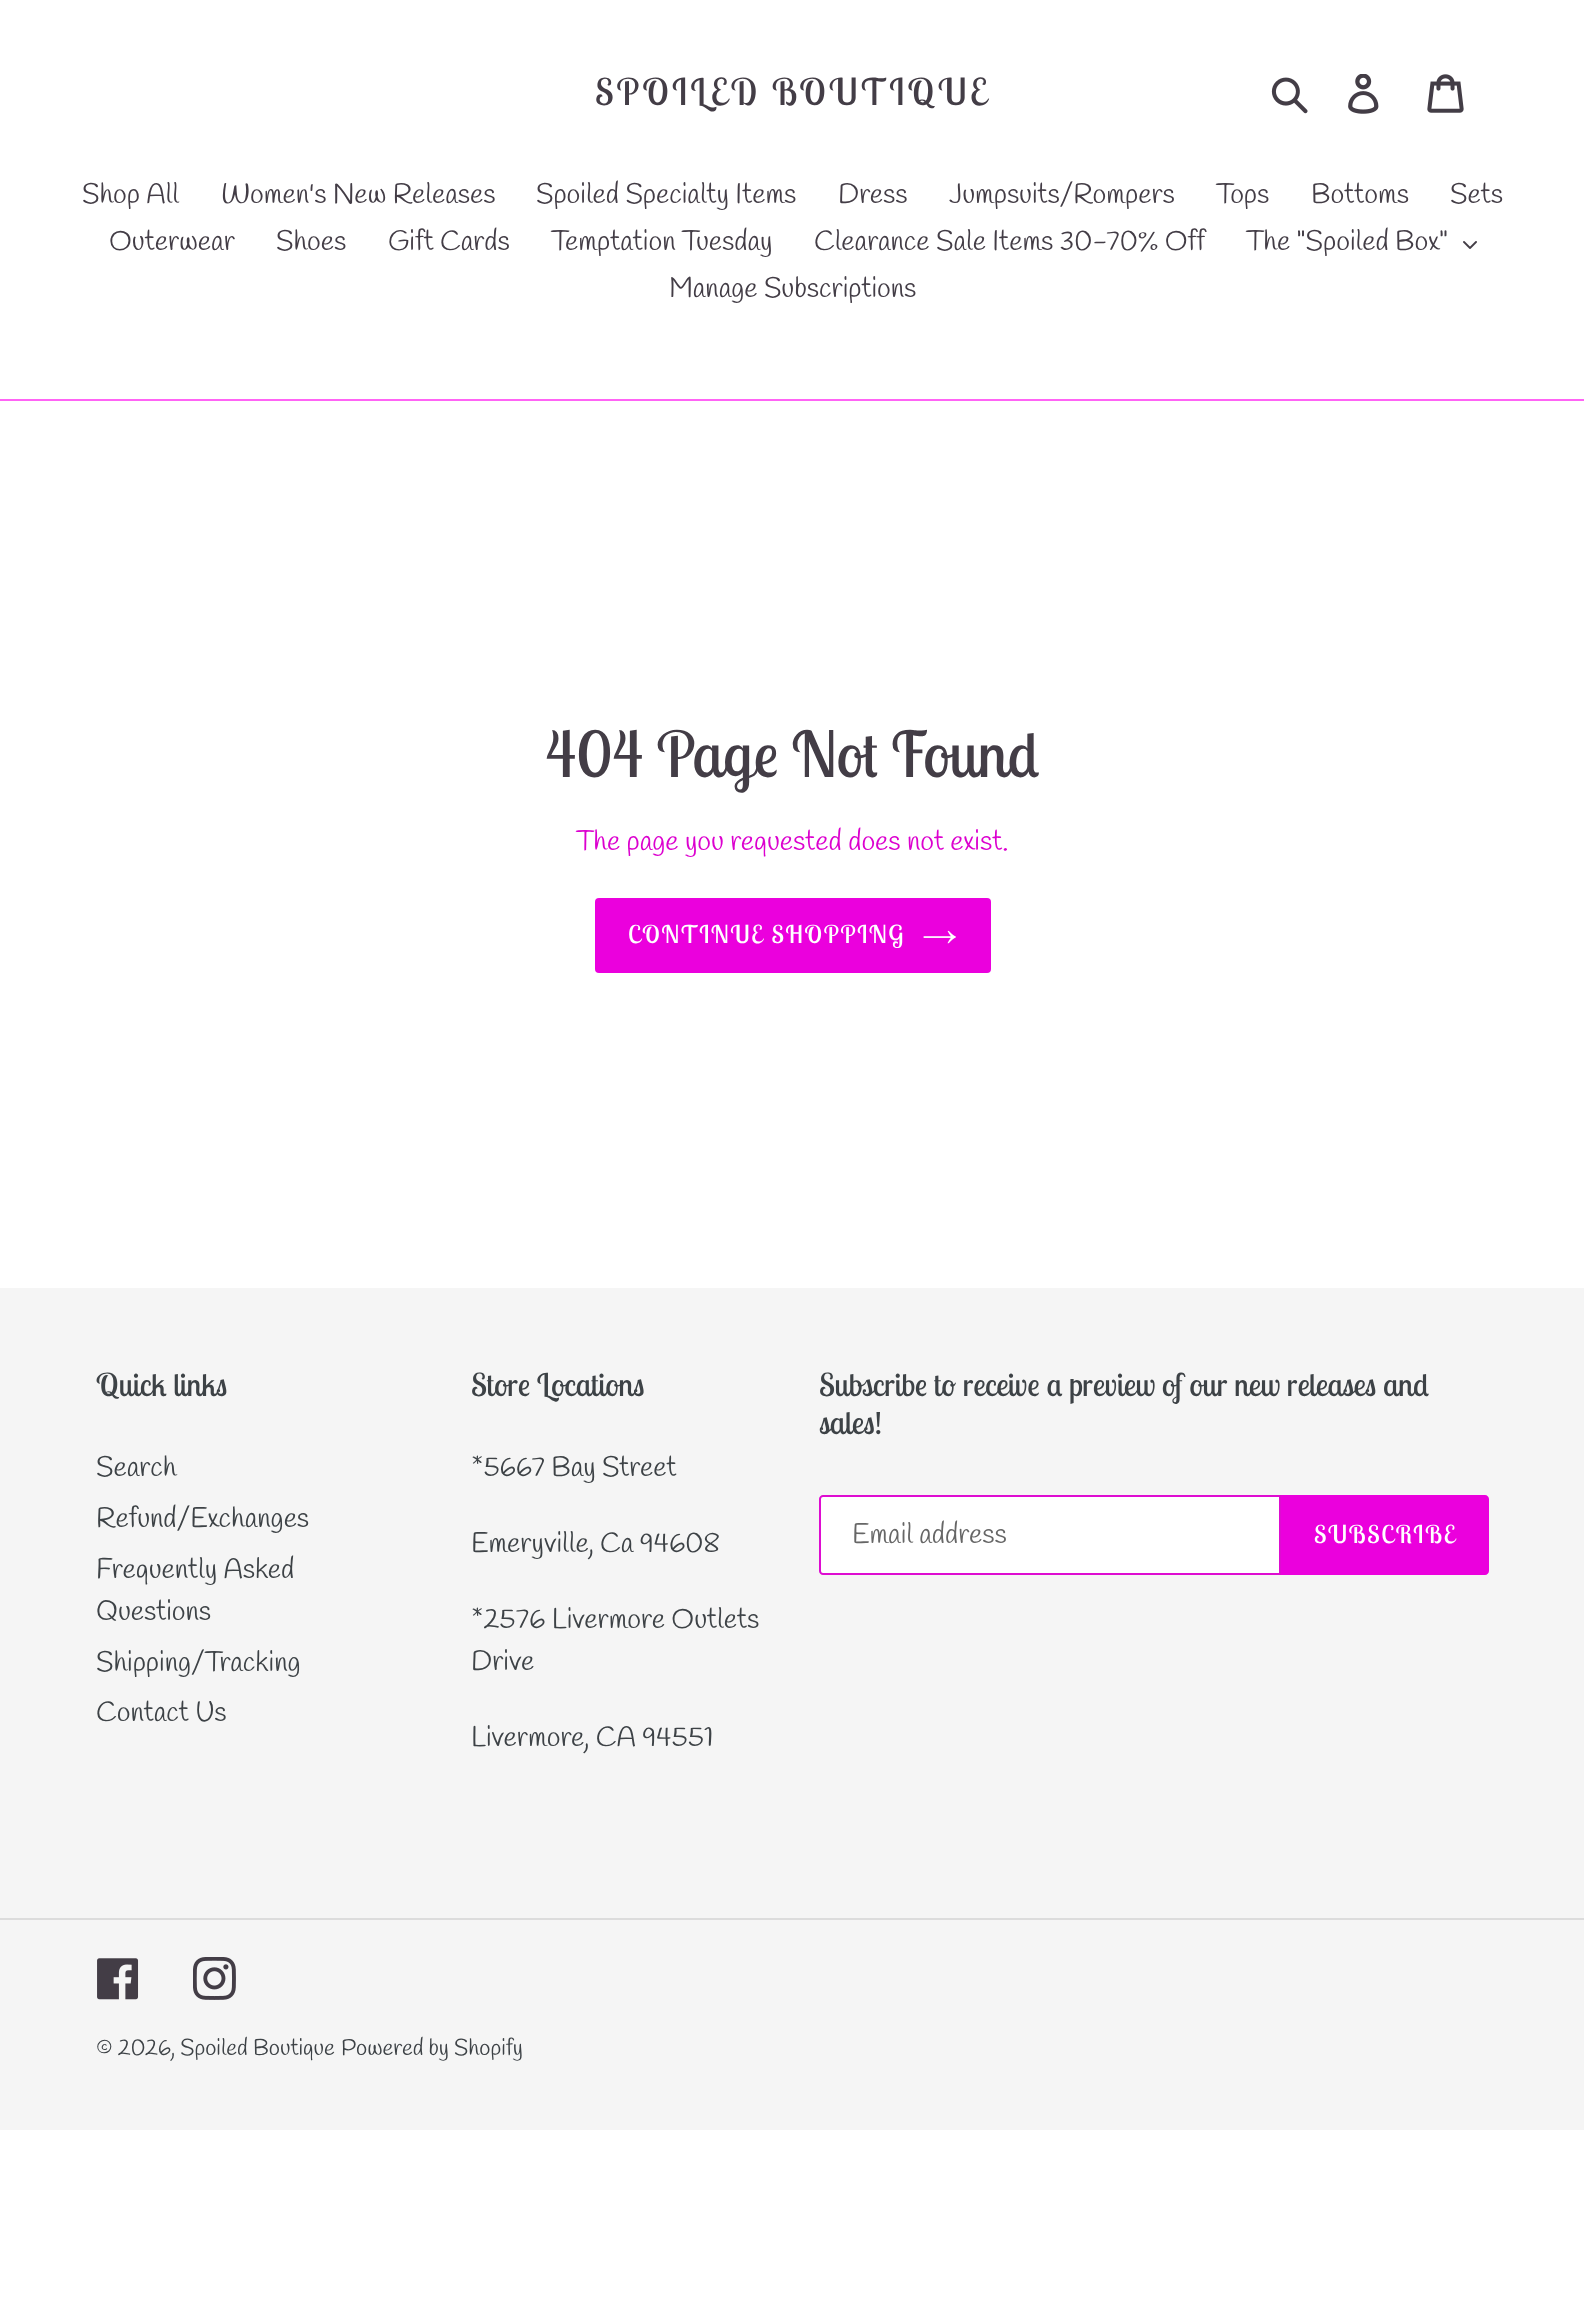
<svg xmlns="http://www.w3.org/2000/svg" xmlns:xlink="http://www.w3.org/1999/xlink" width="1584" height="2306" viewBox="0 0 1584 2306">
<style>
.cls-1{font:36.75px Lobster Two;letter-spacing:3.7px;fill:#433d46}
.cls-2{font:28px Handlee;fill:#433d46}
.cls-3{font:63px Lobster Two;fill:#433d46}
.cls-4{font:28px Handlee;fill:#dc00cf}
.cls-5{font:24.5px Lobster Two;letter-spacing:2px;fill:#ffffff}
.cls-6{font:31.5px Lobster Two;fill:#3d4246}
.cls-7{font:28px Handlee;fill:#3d4246}
.cls-8{font:28px Handlee;fill:#666666}
.cls-9{font:22.75px Handlee;fill:#3d4246}
</style>
<rect width="100%" height="100%" fill="#ffffff"/>
<image xlink:href="image0.png" x="1271" y="77" width="37" height="37"/>
<image xlink:href="image1.png" x="1348" y="74" width="31" height="40"/>
<image xlink:href="image2.png" x="1427" y="74" width="37" height="39"/>
<rect fill="#ff64f5" x="0" y="399" width="1584" height="2"/>
<image xlink:href="image3.png" x="1463" y="241" width="14" height="8"/>
<rect fill="#eb00dd" x="595" y="898" width="396" height="75" rx="4"/>
<image xlink:href="image4.png" x="923" y="930" width="33" height="14"/>
<rect fill="#f5f5f5" x="0" y="1288" width="1584" height="842"/>
<path fill="#ffffff" stroke="#de0cd1" stroke-width="2" d="M823 1496H1280V1574H823C821.5 1574 820 1572.5 820 1571V1499C820 1497.5 821.5 1496 823 1496Z"/>
<path fill="#eb00dd" d="M1281 1495H1485C1487 1495 1489 1497 1489 1499V1571C1489 1573 1487 1575 1485 1575H1281Z"/>
<rect fill="#dcdcdc" x="0" y="1918" width="1584" height="2"/>
<image xlink:href="image5.png" x="97" y="1958" width="42" height="42"/>
<image xlink:href="image6.png" x="193" y="1957" width="43" height="43"/>
<text class="cls-1" x="595" y="105">SPOILED BOUTIQUE</text>
<text class="cls-2" x="82" y="203">Shop All</text>
<text class="cls-2" x="221" y="203">Women's New Releases</text>
<text class="cls-2" x="536" y="203">Spoiled Specialty Items</text>
<text class="cls-2" x="838" y="203">Dress</text>
<text class="cls-2" x="949" y="203">Jumpsuits/Rompers</text>
<text class="cls-2" x="1216" y="203">Tops</text>
<text class="cls-2" x="1311" y="203">Bottoms</text>
<text class="cls-2" x="1450" y="203">Sets</text>
<text class="cls-2" x="109" y="250">Outerwear</text>
<text class="cls-2" x="276" y="250">Shoes</text>
<text class="cls-2" x="388" y="250">Gift Cards</text>
<text class="cls-2" x="551" y="250">Temptation Tuesday</text>
<text class="cls-2" x="814" y="250">Clearance Sale Items 30-70% Off</text>
<text class="cls-2" x="1246" y="250">The "Spoiled Box"</text>
<text class="cls-2" x="669" y="297">Manage Subscriptions</text>
<text class="cls-3" x="546" y="777">404 Page Not Found</text>
<text class="cls-4" x="576" y="850">The page you requested does not exist.</text>
<text class="cls-5" x="628" y="943">CONTINUE SHOPPING</text>
<text class="cls-6" x="96" y="1396">Quick links</text>
<text class="cls-7"><tspan x="96" y="1476">Search</tspan><tspan x="96" y="1527">Refund/Exchanges</tspan><tspan x="96" y="1578">Frequently Asked</tspan><tspan x="96" y="1620">Questions</tspan><tspan x="96" y="1671">Shipping/Tracking</tspan><tspan x="96" y="1721">Contact Us</tspan></text>
<text class="cls-6" x="471" y="1396">Store Locations</text>
<text class="cls-7" x="471" y="1476">*5667 Bay Street</text>
<text class="cls-7" x="471" y="1552">Emeryville, Ca 94608</text>
<text class="cls-7"><tspan x="471" y="1628">*2576 Livermore Outlets</tspan><tspan x="471" y="1670">Drive</tspan></text>
<text class="cls-7" x="471" y="1746">Livermore, CA 94551</text>
<text class="cls-6"><tspan x="819" y="1396">Subscribe to receive a preview of our new releases and</tspan><tspan x="819" y="1434">sales!</tspan></text>
<text class="cls-8" x="852" y="1543">Email address</text>
<text class="cls-5" x="1314" y="1543">SUBSCRIBE</text>
<text class="cls-9" x="96" y="2055">© 2026, Spoiled Boutique</text>
<text class="cls-9" x="341" y="2055">Powered by Shopify</text>
</svg>
